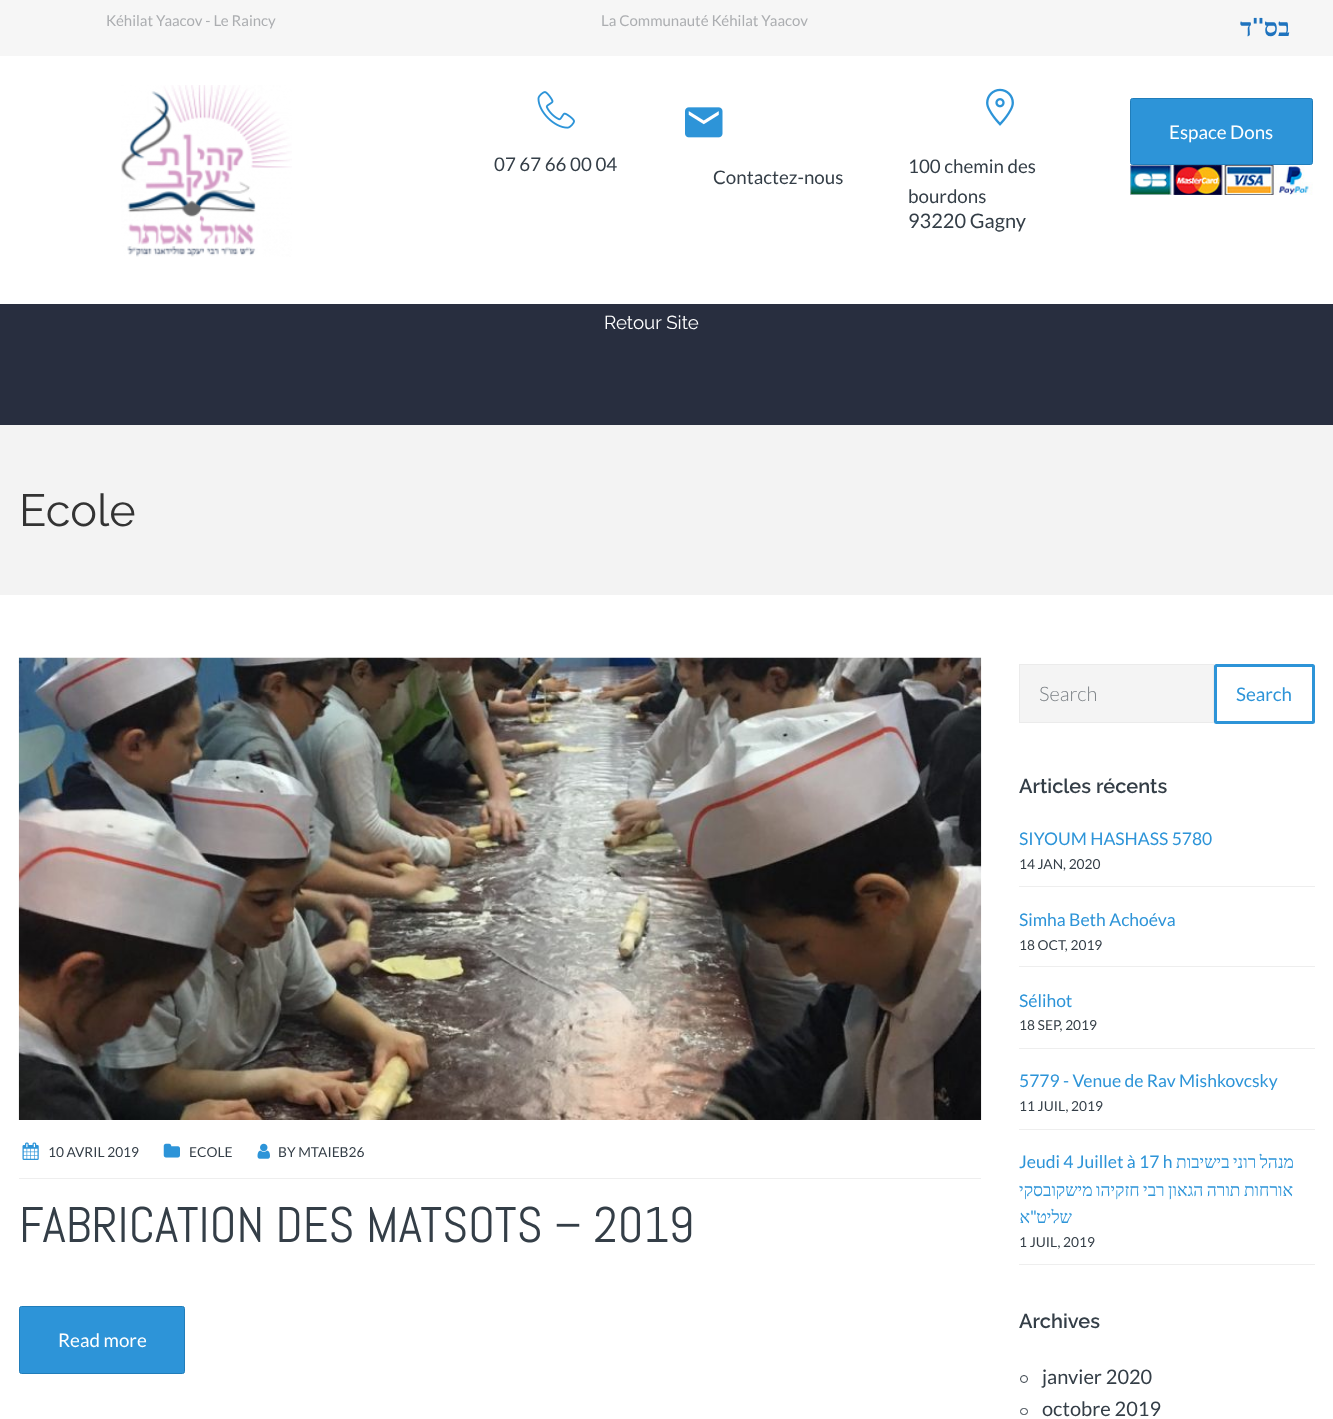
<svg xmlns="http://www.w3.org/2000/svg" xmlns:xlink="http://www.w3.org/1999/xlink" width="1333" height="1419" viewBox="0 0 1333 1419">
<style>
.cls-1{font:15px Lato;fill:#acaeb1}
.cls-2{font:bold 25px Liberation Serif;direction:rtl;fill:#1e73be}
.cls-3{font:bold 25px Raleway;direction:rtl;fill:#1e73be}
.cls-4{font:18.75px Lato;fill:#ffffff}
.cls-5{font:18.75px Lato;fill:#343e47}
.cls-6{font:20px Lato;fill:#343e47}
.cls-7{font:18.75px Raleway;fill:#ffffff}
.cls-8{font:45px Raleway;fill:#333333}
.cls-9{font:13.75px Lato;fill:#343e47}
.cls-10{font:50px Abel;fill:#343e47}
.cls-11{font:300 20px Lato;fill:#7b8085}
.cls-12{font:18.75px Lato;fill:#2d94d8}
.cls-13{font:600 20px Raleway;fill:#343e47}
.cls-14{font:17.5px Lato;fill:#2d94d8}
.cls-15{font:17.5px Liberation Serif;direction:rtl;fill:#2d94d8}
.cls-16{font:17.5px Lato;direction:rtl;fill:#2d94d8}
</style>
<rect width="100%" height="100%" fill="#ffffff"/>
<rect fill="#f6f6f6" x="0" y="0" width="1333" height="56"/>
<image xlink:href="image0.png" x="121" y="85" width="171" height="172"/>
<rect fill="#2d94d8" stroke="#207dba" x="1130.5" y="98.5" width="182" height="66" rx="2"/>
<image xlink:href="image1.png" x="1130" y="165" width="183" height="30"/>
<image xlink:href="image2.png" x="537" y="91" width="38" height="38"/>
<image xlink:href="image3.png" x="685" y="107" width="38" height="31"/>
<image xlink:href="image4.png" x="986" y="88" width="28" height="38"/>
<rect fill="#282e3f" x="0" y="304" width="1333" height="121"/>
<rect fill="#f3f3f3" x="0" y="425" width="1333" height="170"/>
<image xlink:href="image5.png" x="18" y="657" width="964" height="463"/>
<rect fill="#eeeeee" x="19" y="1178" width="962" height="1"/>
<image xlink:href="image6.png" x="22" y="1142" width="17" height="18"/>
<image xlink:href="image7.png" x="163" y="1143" width="17" height="15"/>
<image xlink:href="image8.png" x="257" y="1143" width="13" height="16"/>
<rect fill="#2d94d8" stroke="#207dba" x="19.5" y="1306.5" width="165" height="67" rx="2"/>
<rect fill="#f4f4f4" stroke="#ebebeb" x="1019.5" y="664.5" width="194" height="58"/>
<rect fill="none" stroke="#2d94d8" stroke-width="3" x="1215.5" y="665.5" width="98" height="57" rx="1"/>
<rect fill="#eeeeee" x="1019" y="886" width="296" height="1"/>
<rect fill="#eeeeee" x="1019" y="966" width="296" height="1"/>
<rect fill="#eeeeee" x="1019" y="1048" width="296" height="1"/>
<rect fill="#eeeeee" x="1019" y="1129" width="296" height="1"/>
<rect fill="#eeeeee" x="1019" y="1264" width="296" height="1"/>
<circle fill="none" stroke="#343e47" cx="1024" cy="1379" r="3.5"/>
<rect fill="none" stroke="#343e47" x="1020.5" y="1408.5" width="7" height="6" rx="3"/>
<text class="cls-1" x="106" y="26">Kéhilat Yaacov - Le Raincy</text>
<text class="cls-1" x="601" y="26">La Communauté Kéhilat Yaacov</text>
<text class="cls-2" x="1252" y="36">ד</text>
<text class="cls-3" x="1264" y="36">''</text>
<text class="cls-2" x="1290" y="36">בס</text>
<text class="cls-4" x="1169" y="139">Espace Dons</text>
<text class="cls-5" x="494" y="171">07 67 66 00 04</text>
<text class="cls-5" x="713" y="184">Contactez-nous</text>
<text class="cls-5"><tspan x="908" y="173">100 chemin des</tspan><tspan x="908" y="203">bourdons</tspan></text>
<text class="cls-6" x="908" y="228">93220 Gagny</text>
<text class="cls-7" x="604" y="329">Retour Site</text>
<text class="cls-8" x="19" y="526">Ecole</text>
<text class="cls-9" x="48" y="1157">10 AVRIL 2019</text>
<text class="cls-9" x="189" y="1157">ECOLE</text>
<text class="cls-9" x="278" y="1157">BY MTAIEB26</text>
<text class="cls-10" x="19" y="1242">FABRICATION DES MATSOTS – 2019</text>
<text class="cls-4" x="58" y="1347">Read more</text>
<text class="cls-11" x="1039" y="701">Search</text>
<text class="cls-12" x="1236" y="701">Search</text>
<text class="cls-13" x="1019" y="793">Articles récents</text>
<text class="cls-14" x="1019" y="845">SIYOUM HASHASS 5780</text>
<text class="cls-9" x="1019" y="869">14 JAN, 2020</text>
<text class="cls-14" x="1019" y="926">Simha Beth Achoéva</text>
<text class="cls-9" x="1019" y="950">18 OCT, 2019</text>
<text class="cls-14" x="1019" y="1007">Sélihot</text>
<text class="cls-9" x="1019" y="1030">18 SEP, 2019</text>
<text class="cls-14" x="1019" y="1087">5779 - Venue de Rav Mishkovcsky</text>
<text class="cls-9" x="1019" y="1111">11 JUIL, 2019</text>
<text class="cls-14" x="1019" y="1168">Jeudi 4 Juillet à 17 h</text>
<text class="cls-15" x="1294" y="1168" word-spacing="-1">מנהל רוני בישיבות</text>
<text class="cls-15" x="1293" y="1196" word-spacing="-1">אורחות תורה הגאון רבי חזקיהו מישקובסקי</text>
<text class="cls-15" x="1030" y="1223">א</text>
<text class="cls-16" x="1037" y="1223">"</text>
<text class="cls-15" x="1072" y="1223">שליט</text>
<text class="cls-9" x="1019" y="1247">1 JUIL, 2019</text>
<text class="cls-13" x="1019" y="1328">Archives</text>
<text class="cls-6"><tspan x="1042" y="1384">janvier 2020</tspan><tspan x="1042" y="1416">octobre 2019</tspan></text>
</svg>
